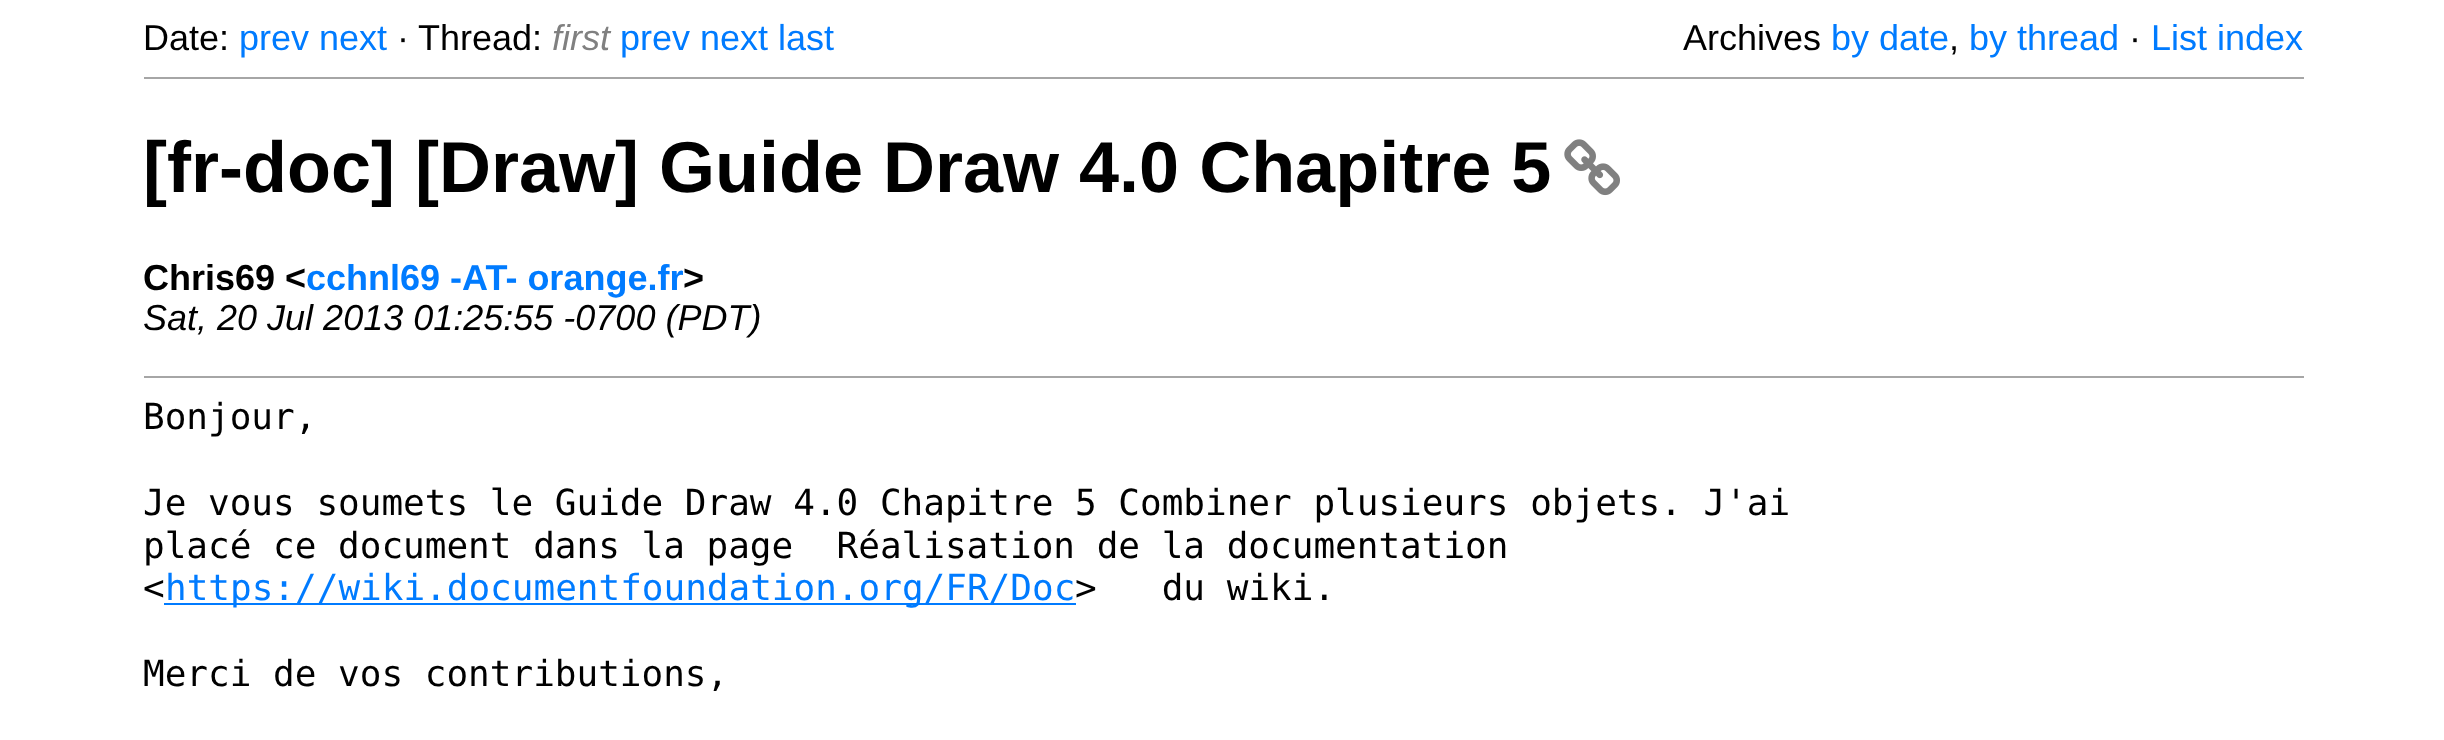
<svg xmlns="http://www.w3.org/2000/svg" xmlns:xlink="http://www.w3.org/1999/xlink" width="2444" height="740" viewBox="0 0 2444 740">
<style>
.cls-1{font:36px Liberation Sans;fill:#000000}
.cls-2{font:36px Liberation Sans;fill:#007bff}
.cls-3{font:italic 36px Liberation Sans;fill:#808080}
.cls-4{font:bold 72px Liberation Sans;fill:#000000}
.cls-5{font:bold 36px Liberation Sans;fill:#000000}
.cls-6{font:bold 36px Liberation Sans;fill:#007bff}
.cls-7{font:italic 36px Liberation Sans;fill:#000000}
.cls-8{font:36px DejaVu Sans Mono;fill:#000000}
.cls-9{font:36px DejaVu Sans Mono;fill:#007bff}
</style>
<rect width="100%" height="100%" fill="#ffffff"/>
<rect fill="#a6a6a6" x="144" y="77" width="2160" height="2"/>
<image xlink:href="image0.png" x="1564" y="139" width="56" height="57"/>
<rect fill="#a6a6a6" x="144" y="376" width="2160" height="2"/>
<rect fill="#007bff" x="164" y="603" width="912" height="2"/>
<text class="cls-1" x="143" y="50">Date:</text>
<text class="cls-2" x="239" y="50">prev next</text>
<text class="cls-1" x="397" y="50">·</text>
<text class="cls-1" x="418" y="50">Thread:</text>
<text class="cls-3" x="552" y="50">first</text>
<text class="cls-2" x="620" y="50">prev next last</text>
<text class="cls-1" x="1683" y="50">Archives</text>
<text class="cls-2" x="1831" y="50">by date</text>
<text class="cls-2" x="1969" y="50">by thread</text>
<text class="cls-1" x="2129" y="50">·</text>
<text class="cls-2" x="2151" y="50">List index</text>
<text class="cls-1" x="1949" y="50">,</text>
<text class="cls-4" x="143" y="192">[fr-doc] [Draw] Guide Draw 4.0 Chapitre 5</text>
<text class="cls-5" x="143" y="290">Chris69 &lt;</text>
<text class="cls-6" x="306" y="290">cchnl69 -AT- orange.fr</text>
<text class="cls-5" x="683" y="290">&gt;</text>
<text class="cls-7" x="143" y="330">Sat, 20 Jul 2013 01:25:55 -0700 (PDT)</text>
<text class="cls-8" x="143" y="429">Bonjour,</text>
<text class="cls-8" xml:space="preserve"><tspan x="143" y="515">Je vous soumets le Guide Draw 4.0 Chapitre 5 Combiner plusieurs objets. J'ai</tspan><tspan x="143" y="558">placé ce document dans la page  Réalisation de la documentation</tspan><tspan x="143" y="600">&lt;</tspan></text>
<text class="cls-9" x="165" y="600">https://wiki.documentfoundation.org/FR/Doc</text>
<text class="cls-8" xml:space="preserve" x="1075" y="600">&gt;   du wiki.</text>
<text class="cls-8" x="143" y="686">Merci de vos contributions,</text>
</svg>
